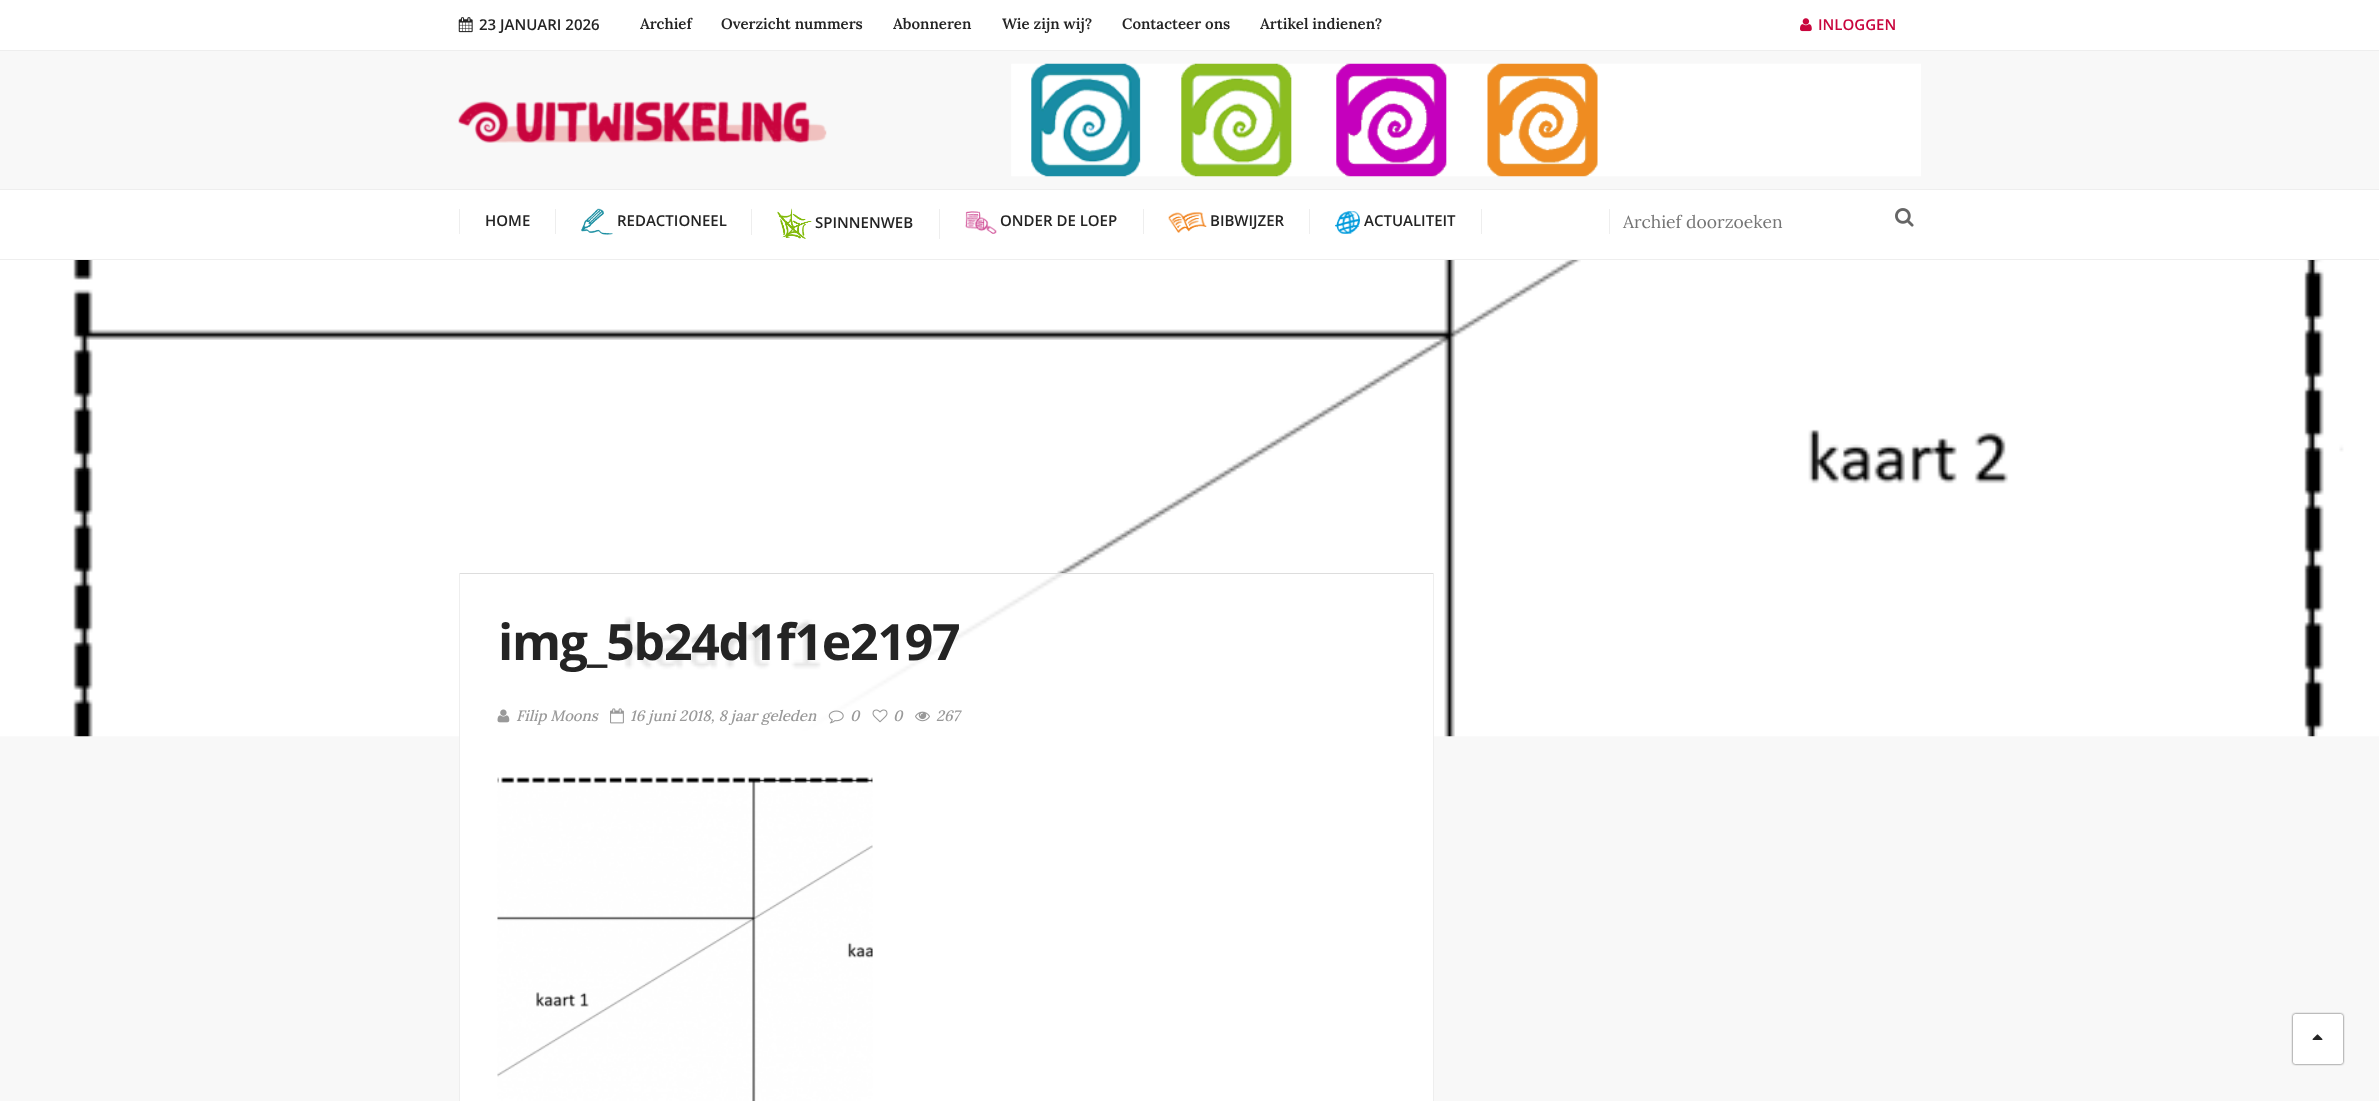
<svg xmlns="http://www.w3.org/2000/svg" xmlns:xlink="http://www.w3.org/1999/xlink" width="2379" height="1101" viewBox="0 0 2379 1101">
<style>
.cls-1{font:600 15px Open Sans;fill:#242424}
.cls-2{font:600 15px Lora;fill:#242424}
.cls-3{font:600 15px Open Sans;fill:#c9053d}
.cls-4{font:17.5px Lora;fill:#757575}
.cls-5{font:bold 50px Open Sans;letter-spacing:-1.25px;fill:#242424}
.cls-6{font:italic 500 15px Lora;fill:#999999}
</style>
<rect width="100%" height="100%" fill="#f8f8f8"/>
<rect fill="#ffffff" x="0" y="0" width="2379" height="259"/>
<rect fill="#eeeeee" x="0" y="50" width="2379" height="1"/>
<image xlink:href="image0.png" x="458" y="17" width="15" height="16"/>
<image xlink:href="image1.png" x="1800" y="18" width="12" height="14"/>
<rect fill="#f8f8f8" x="0" y="51" width="2379" height="138"/>
<image xlink:href="image2.png" x="458" y="101" width="369" height="42"/>
<image xlink:href="image3.png" x="1011" y="63" width="910" height="114"/>
<rect fill="#eeeeee" x="0" y="189" width="2379" height="1"/>
<rect fill="#eeeeee" x="0" y="259" width="2379" height="1"/>
<rect fill="#eeeeee" x="555" y="209" width="1" height="25"/>
<rect fill="#eeeeee" x="459" y="209" width="1" height="25"/>
<rect fill="#eeeeee" x="751" y="209" width="1" height="26"/>
<image xlink:href="image4.png" x="581" y="208" width="32" height="27"/>
<rect fill="#eeeeee" x="939" y="209" width="1" height="30"/>
<image xlink:href="image5.png" x="777" y="208" width="35" height="31"/>
<rect fill="#eeeeee" x="1143" y="209" width="1" height="25"/>
<image xlink:href="image6.png" x="965" y="211" width="32" height="23"/>
<rect fill="#eeeeee" x="1309" y="209" width="1" height="25"/>
<image xlink:href="image7.png" x="1168" y="212" width="39" height="21"/>
<rect fill="#eeeeee" x="1481" y="209" width="1" height="25"/>
<image xlink:href="image8.png" x="1335" y="211" width="25" height="23"/>
<rect fill="#eeeeee" x="1609" y="209" width="1" height="25"/>
<image xlink:href="image9.png" x="1895" y="208" width="19" height="19"/>
<image xlink:href="image10.png" x="0" y="260" width="2379" height="477"/>
<rect fill="#dddddd" x="459" y="573" width="975" height="1"/>
<rect fill="#eeeeee" x="1433" y="573" width="1" height="528"/>
<rect fill="#eeeeee" x="459" y="573" width="1" height="528"/>
<image xlink:href="image11.png" x="497" y="709" width="13" height="14"/>
<image xlink:href="image12.png" x="610" y="708" width="14" height="16"/>
<image xlink:href="image13.png" x="828" y="710" width="16" height="14"/>
<image xlink:href="image14.png" x="872" y="709" width="16" height="14"/>
<image xlink:href="image15.png" x="915" y="711" width="15" height="11"/>
<rect fill="#ffffff" x="460" y="736" width="973" height="365"/>
<image xlink:href="image16.png" x="497" y="777" width="376" height="324"/>
<rect fill="#444444" filter="blur(1px)" x="2293" y="1014" width="50" height="50" rx="2.5"/>
<rect fill="#ffffff" x="2293" y="1014" width="50" height="50" rx="2.5"/>
<image xlink:href="image17.png" x="2312" y="1034" width="11" height="6"/>
<text class="cls-1" x="479" y="30">23 JANUARI 2026</text>
<text class="cls-2" x="640" y="29">Archief</text>
<text class="cls-2" x="721" y="29">Overzicht nummers</text>
<text class="cls-2" x="893" y="29">Abonneren</text>
<text class="cls-2" x="1002" y="29">Wie zijn wij?</text>
<text class="cls-2" x="1122" y="29">Contacteer ons</text>
<text class="cls-2" x="1260" y="29">Artikel indienen?</text>
<text class="cls-3" x="1818" y="30">INLOGGEN</text>
<text class="cls-1" x="485" y="226">HOME</text>
<text class="cls-1" x="617" y="226">REDACTIONEEL</text>
<text class="cls-1" x="815" y="228">SPINNENWEB</text>
<text class="cls-1" x="1000" y="226">ONDER DE LOEP</text>
<text class="cls-1" x="1210" y="226">BIBWIJZER</text>
<text class="cls-1" x="1364" y="226">ACTUALITEIT</text>
<text class="cls-4" x="1623" y="228">Archief doorzoeken</text>
<text class="cls-5" x="498" y="660">img_5b24d1f1e2197</text>
<text class="cls-6" x="516" y="721">Filip Moons</text>
<text class="cls-6" x="630" y="721">16 juni 2018, 8 jaar geleden</text>
<text class="cls-6" x="850" y="721">0</text>
<text class="cls-6" x="893" y="721">0</text>
<text class="cls-6" x="936" y="721">267</text>
</svg>
